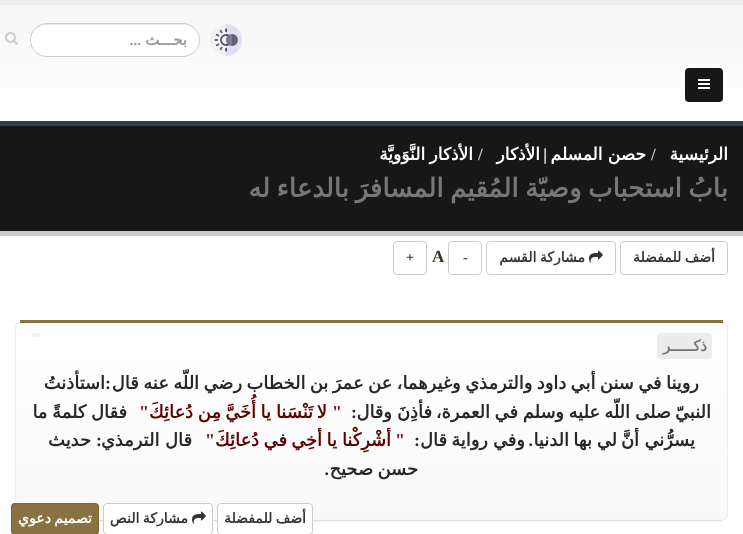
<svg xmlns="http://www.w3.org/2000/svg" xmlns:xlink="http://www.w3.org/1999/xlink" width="743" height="534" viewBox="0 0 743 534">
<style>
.cls-1{font:bold 15px DejaVu Sans;direction:rtl;fill:#999999}
.cls-2{font:bold 15px Liberation Serif;direction:rtl;fill:#999999}
.cls-3{font:bold 17px DejaVu Sans;direction:rtl;fill:#ffffff}
.cls-4{font:bold 17px Liberation Serif;fill:#cccccc}
.cls-5{font:bold 17px Liberation Serif;direction:rtl;fill:#ffffff}
.cls-6{font:bold 26px DejaVu Sans;direction:rtl;fill:#777777}
.cls-7{font:bold 14px DejaVu Sans;direction:rtl;fill:#333333}
.cls-8{font:bold 14px Liberation Serif;fill:#333333}
.cls-9{font:bold 17px Liberation Serif;fill:#3c311d}
.cls-10{font:bold 15px DejaVu Sans;direction:rtl;fill:#777777}
.cls-11{font:bold 17.85px DejaVu Sans;direction:rtl;fill:#272727}
.cls-12{font:bold 17.85px Liberation Serif;direction:rtl;fill:#272727}
.cls-13{font:bold 17.85px Liberation Serif;direction:rtl;fill:#5f0000}
.cls-14{font:bold 17.85px DejaVu Sans;direction:rtl;fill:#5f0000}
.cls-15{font:bold 14px DejaVu Sans;direction:rtl;fill:#ffffff}
</style>
<defs>
<linearGradient id="g1" gradientUnits="userSpaceOnUse" x1="372" y1="5" x2="372" y2="121"><stop offset="0" stop-color="#f6f6f6"/><stop offset="1" stop-color="#ffffff"/></linearGradient>
<clipPath id="clip1"><rect x="15" y="320" width="713" height="201" rx="8"/></clipPath>
<linearGradient id="g2" gradientUnits="userSpaceOnUse" x1="372" y1="320" x2="372" y2="520"><stop offset="0.01" stop-color="#ffffff"/><stop offset="0.98" stop-color="#f9f9f9"/></linearGradient>
<linearGradient id="g3" gradientUnits="userSpaceOnUse" x1="372" y1="520" x2="372" y2="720"><stop offset="0.01" stop-color="#ffffff"/><stop offset="0.98" stop-color="#f9f9f9"/></linearGradient>
</defs>
<rect width="100%" height="100%" fill="#ffffff"/>
<rect fill="url(#g1)" x="0" y="5" width="743" height="84"/>
<rect fill="#ededed" x="0" y="0" width="743" height="5"/>
<image xlink:href="image0.png" x="210" y="24" width="32" height="32"/>
<rect fill="#ffffff" x="30" y="23" width="170" height="34" rx="17"/>
<path fill="#ececec" d="M47 25H183C192 25 199 32 199 40C199 31 192 24 183 24H47C38 24 31 31 31 40C31 32 38 25 47 25Z"/>
<rect fill="none" stroke="#cccccc" x="30.5" y="23.5" width="169" height="33" rx="16.5"/>
<image xlink:href="image1.png" x="5" y="32" width="13" height="13"/>
<rect fill="#171717" x="685" y="68" width="38" height="34" rx="4"/>
<image xlink:href="image2.png" x="698" y="79" width="12" height="10"/>
<rect fill="#171717" x="0" y="126" width="743" height="105"/>
<rect fill="#384045" x="0" y="121" width="743" height="5"/>
<rect fill="#cccccc" x="0" y="231" width="743" height="5"/>
<rect fill="none" stroke="#cccccc" x="620.5" y="241.5" width="107" height="33" rx="3.5"/>
<rect fill="none" stroke="#cccccc" x="486.5" y="241.5" width="129" height="33" rx="3.5"/>
<image xlink:href="image3.png" x="589" y="250" width="14" height="13"/>
<rect fill="none" stroke="#cccccc" x="448.5" y="241.5" width="33" height="33" rx="3.5"/>
<rect fill="none" stroke="#cccccc" x="393.5" y="241.5" width="33" height="33" rx="3.5"/>
<rect fill="#000000" fill-opacity="0.04" filter="blur(0.5px)" x="15" y="321" width="713" height="201" rx="8"/>
<g clip-path="url(#clip1)">
<path fill="url(#g2)" d="M23 320H720C724.5 320 728 323.5 728 328V520H15V328C15 323.5 18.5 320 23 320Z"/>
<rect fill="url(#g3)" x="720" y="520" width="8" height="1"/>
</g>
<path fill="#ececec" d="M728 328C728 324 724 320 720 320C724 320 727 324 727 328V513C727 515 726 517 725 518H726C727 517 728 515 728 513Z"/>
<path fill="#dfdfdf" d="M23 521H720C722 521 724 520 726 518H725C724 519 722 520 720 520H23C21 520 19 519 18 518C19 520 21 521 23 521Z"/>
<path fill="#ececec" d="M15 328V513C15 515 16 517 18 518C17 517 16 515 16 513V328C16 324 19 320 23 320C19 320 15 324 15 328Z"/>
<rect fill="#8a7142" x="20" y="320" width="703" height="3"/>
<rect fill="#f4f4f4" x="31" y="333" width="10" height="4" rx="2"/>
<rect fill="#ececec" x="657" y="333" width="55" height="26" rx="4"/>
<rect fill="#ffffff" stroke="#cccccc" x="217.5" y="503.5" width="95" height="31" rx="3.5"/>
<rect fill="#ffffff" stroke="#cccccc" x="103.5" y="503.5" width="109" height="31" rx="3.5"/>
<image xlink:href="image3.png" x="192" y="511" width="14" height="13"/>
<rect fill="#8a7142" x="11" y="503" width="88" height="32" rx="4"/>
<path fill="none" stroke="#000000" stroke-opacity="0.25" d="M97.5 533.5L95.5 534.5H14.5L12.5 533.5"/>
<path fill="none" stroke="#000000" stroke-opacity="0.1" d="M12.5 533.5C10.5 531 11.5 522 11.5 519C11.5 500.5 9 503.5 28.5 503.5H81.5C101 503.5 98.5 500.5 98.5 519C98.5 522 99.5 531 97.5 533.5"/>
<text class="cls-1" x="187" y="45">بحـــث</text>
<text class="cls-2" x="141" y="45">...</text>
<text class="cls-3" x="728" y="160">الرئيسية</text>
<text class="cls-4" x="651" y="160">/</text>
<text class="cls-3" x="646" y="160">حصن المسلم</text>
<text class="cls-5" x="547" y="160">|</text>
<text class="cls-3" x="540" y="160">الأذكار</text>
<text class="cls-4" x="478" y="160">/</text>
<text class="cls-3" x="473" y="160" word-spacing="-1">الأذكار النَّوَويَّة</text>
<text class="cls-6" x="728" y="197" word-spacing="-1.75">بابُ استحباب وصيّة المُقيم المسافرَ بالدعاء له</text>
<text class="cls-7" x="715" y="262" word-spacing="-1">أضف للمفضلة</text>
<text class="cls-7" x="585" y="262" word-spacing="-1">مشاركة القسم</text>
<text class="cls-8" x="463" y="262">-</text>
<text class="cls-9" x="432" y="262">A</text>
<text class="cls-8" x="406" y="262">+</text>
<text class="cls-10" x="707" y="351">ذكـــــر</text>
<text class="cls-11" x="699" y="389" word-spacing="-1.25">روينا في سنن أبي داود والترمذي وغيرهما، عن عمرَ بن الخطاب رضي اللّه عنه قال</text>
<text class="cls-12" x="111" y="389">:</text>
<text class="cls-11" x="105" y="389">استأذنتُ</text>
<text class="cls-11" x="711" y="418">النبيّ</text>
<text class="cls-11" x="671" y="418">صلى</text>
<text class="cls-11" x="630" y="418">اللّه</text>
<text class="cls-11" x="600" y="418">عليه</text>
<text class="cls-11" x="564" y="418">وسلم</text>
<text class="cls-11" x="518" y="418">في</text>
<text class="cls-11" x="490" y="418">العمرة،</text>
<text class="cls-11" x="432" y="418">فأذِنَ</text>
<text class="cls-11" x="392" y="418">وقال</text>
<text class="cls-12" x="357" y="418">: </text>
<text class="cls-13" x="342" y="418">" </text>
<text class="cls-14" x="327" y="418">لا</text>
<text class="cls-14" x="313" y="418">تَنْسَنا</text>
<text class="cls-14" x="271" y="418">يا</text>
<text class="cls-14" x="256" y="418">أُخَيَّ</text>
<text class="cls-14" x="221" y="418">مِن</text>
<text class="cls-14" x="193" y="418">دُعائِكَ</text>
<text class="cls-13" x="149" y="418"> "</text>
<text class="cls-11" x="127" y="418" word-spacing="-1">فقال كلمةً ما</text>
<text class="cls-11" x="695" y="446">يسرُّني</text>
<text class="cls-11" x="639" y="446">أنَّ</text>
<text class="cls-11" x="617" y="446">لي</text>
<text class="cls-11" x="592" y="446">بها</text>
<text class="cls-11" x="569" y="446">الدنيا</text>
<text class="cls-12" x="533" y="446">.</text>
<text class="cls-11" x="525" y="446">وفي</text>
<text class="cls-11" x="488" y="446">رواية</text>
<text class="cls-11" x="447" y="446">قال</text>
<text class="cls-12" x="420" y="446">: </text>
<text class="cls-13" x="405" y="446">" </text>
<text class="cls-14" x="391" y="446">أشْرِكْنا</text>
<text class="cls-14" x="337" y="446">يا</text>
<text class="cls-14" x="322" y="446">أخِي</text>
<text class="cls-14" x="287" y="446">في</text>
<text class="cls-14" x="259" y="446">دُعائِكَ</text>
<text class="cls-13" x="215" y="446"> "</text>
<text class="cls-11" x="192" y="446">قال الترمذي</text>
<text class="cls-12" x="102" y="446">:</text>
<text class="cls-11" x="91" y="446">حديث</text>
<text class="cls-11" x="418" y="475" word-spacing="-1.25">حسن صحيح</text>
<text class="cls-12" x="329" y="475">.</text>
<text class="cls-7" x="306" y="523" word-spacing="-1">أضف للمفضلة</text>
<text class="cls-7" x="188" y="523" word-spacing="-1">مشاركة النص</text>
<text class="cls-15" x="92" y="523" word-spacing="-1">تصميم دعوي</text>
</svg>
